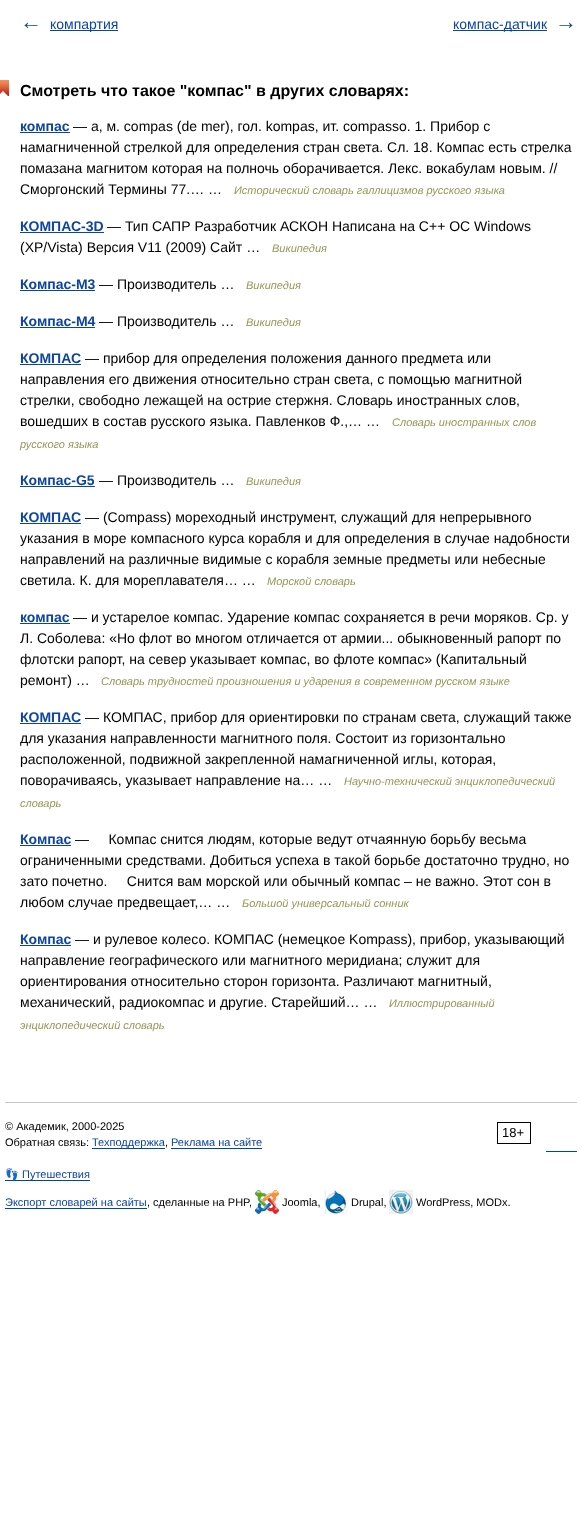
<svg xmlns="http://www.w3.org/2000/svg" xmlns:xlink="http://www.w3.org/1999/xlink" width="582" height="1524" viewBox="0 0 582 1524">
<style>
.cls-1{font:bold 22px Liberation Sans;fill:#0d44a0}
.cls-2{font:14px Liberation Sans;fill:#0d44a0}
.cls-3{font:bold 16px Liberation Sans;fill:#000000}
.cls-4{font:bold 14px Liberation Sans;fill:#0d44a0}
.cls-5{font:14px Liberation Sans;fill:#000000}
.cls-6{font:italic 11px Liberation Sans;fill:#939756}
.cls-7{font:11px Liberation Sans;fill:#000000}
.cls-8{font:13px Liberation Sans;fill:#000000}
.cls-9{font:11px Liberation Sans;fill:#0d44a0}
.cls-10{font:11px Noto Color Emoji;fill:#0d44a0}
</style>
<rect width="100%" height="100%" fill="#ffffff"/>
<rect fill="#0d44a0" x="50" y="30" width="68" height="1"/>
<rect fill="#0d44a0" x="453" y="30" width="94" height="1"/>
<image xlink:href="image0.png" x="0" y="80" width="9" height="16"/>
<rect fill="#0d44a0" x="20" y="132" width="50" height="1"/>
<rect fill="#0d44a0" x="20" y="232" width="84" height="1"/>
<rect fill="#0d44a0" x="20" y="290" width="75" height="1"/>
<rect fill="#0d44a0" x="20" y="327" width="75" height="1"/>
<rect fill="#0d44a0" x="20" y="364" width="61" height="1"/>
<rect fill="#0d44a0" x="20" y="486" width="75" height="1"/>
<rect fill="#0d44a0" x="20" y="523" width="61" height="1"/>
<rect fill="#0d44a0" x="20" y="623" width="50" height="1"/>
<rect fill="#0d44a0" x="20" y="723" width="61" height="1"/>
<rect fill="#0d44a0" x="20" y="845" width="51" height="1"/>
<rect fill="#0d44a0" x="20" y="945" width="51" height="1"/>
<rect fill="#c7c7c7" x="5" y="1102" width="572" height="1"/>
<rect fill="none" stroke="#000000" x="497.5" y="1122.5" width="33" height="21"/>
<rect fill="#0044aa" x="92" y="1148" width="73" height="1"/>
<rect fill="#0044aa" x="171" y="1148" width="91" height="1"/>
<rect fill="#0044aa" x="546" y="1151" width="31" height="1"/>
<rect fill="#0044aa" x="5" y="1180" width="85" height="1"/>
<rect fill="#0044aa" x="5" y="1208" width="142" height="1"/>
<image xlink:href="image1.png" x="255" y="1190" width="24" height="24"/>
<image xlink:href="image2.png" x="324" y="1190" width="24" height="24"/>
<image xlink:href="image3.png" x="389" y="1190" width="24" height="24"/>
<text class="cls-1" x="20" y="29">←</text>
<text class="cls-2" x="50" y="29">компартия</text>
<text class="cls-2" x="453" y="29">компас-датчик</text>
<text class="cls-1" x="555" y="29">→</text>
<text class="cls-3" x="20" y="96">Смотреть что такое "компас" в других словарях:</text>
<text class="cls-4" x="20" y="131">компас</text>
<text class="cls-5" x="73" y="131">— а, м. compas (de mer), гол. kompas, ит. compasso. 1. Прибор с</text>
<text class="cls-5"><tspan x="20" y="152">намагниченной стрелкой для определения стран света. Сл. 18. Компас есть стрелка</tspan><tspan x="20" y="173">помазана магнитом которая на полночь оборачивается. Лекс. вокабулам новым. //</tspan><tspan x="20" y="194">Сморгонский Термины 77.… …</tspan></text>
<text class="cls-6" x="234" y="194">Исторический словарь галлицизмов русского языка</text>
<text class="cls-4" x="20" y="231">КОМПАС-3D</text>
<text class="cls-5" x="107" y="231">— Тип САПР Разработчик АСКОН Написана на C++ ОС Windows</text>
<text class="cls-5" x="20" y="252">(XP/Vista) Версия V11 (2009) Сайт …</text>
<text class="cls-6" x="272" y="252">Википедия</text>
<text class="cls-4" x="20" y="289">Компас-М3</text>
<text class="cls-5" x="99" y="289">— Производитель …</text>
<text class="cls-6" x="246" y="289">Википедия</text>
<text class="cls-4" x="20" y="326">Компас-М4</text>
<text class="cls-5" x="99" y="326">— Производитель …</text>
<text class="cls-6" x="246" y="326">Википедия</text>
<text class="cls-4" x="20" y="363">КОМПАС</text>
<text class="cls-5" x="85" y="363">— прибор для определения положения данного предмета или</text>
<text class="cls-5"><tspan x="20" y="384">направления его движения относительно стран света, с помощью магнитной</tspan><tspan x="20" y="405">стрелки, свободно лежащей на острие стержня. Словарь иностранных слов,</tspan><tspan x="20" y="426">вошедших в состав русского языка. Павленков Ф.,… …</tspan></text>
<text class="cls-6" x="392" y="426">Словарь иностранных слов</text>
<text class="cls-6" x="20" y="448">русского языка</text>
<text class="cls-4" x="20" y="485">Компас-G5</text>
<text class="cls-5" x="99" y="485">— Производитель …</text>
<text class="cls-6" x="246" y="485">Википедия</text>
<text class="cls-4" x="20" y="522">КОМПАС</text>
<text class="cls-5" x="85" y="522">— (Compass) мореходный инструмент, служащий для непрерывного</text>
<text class="cls-5"><tspan x="20" y="543">указания в море компасного курса корабля и для определения в случае надобности</tspan><tspan x="20" y="564">направлений на различные видимые с корабля земные предметы или небесные</tspan><tspan x="20" y="585">светила. К. для мореплавателя… …</tspan></text>
<text class="cls-6" x="267" y="585">Морской словарь</text>
<text class="cls-4" x="20" y="622">компас</text>
<text class="cls-5" x="73" y="622">— и устарелое компас. Ударение компас сохраняется в речи моряков. Ср. у</text>
<text class="cls-5"><tspan x="20" y="643">Л. Соболева: «Но флот во многом отличается от армии... обыкновенный рапорт по</tspan><tspan x="20" y="664">флотски рапорт, на север указывает компас, во флоте компас» (Капитальный</tspan><tspan x="20" y="685">ремонт) …</tspan></text>
<text class="cls-6" x="101" y="685">Словарь трудностей произношения и ударения в современном русском языке</text>
<text class="cls-4" x="20" y="722">КОМПАС</text>
<text class="cls-5" x="85" y="722">— КОМПАС, прибор для ориентировки по странам света, служащий также</text>
<text class="cls-5"><tspan x="20" y="743">для указания направленности магнитного поля. Состоит из горизонтально</tspan><tspan x="20" y="764">расположенной, подвижной закрепленной намагниченной иглы, которая,</tspan><tspan x="20" y="785">поворачиваясь, указывает направление на… …</tspan></text>
<text class="cls-6" x="344" y="785">Научно-технический энциклопедический</text>
<text class="cls-6" x="20" y="807">словарь</text>
<text class="cls-4" x="20" y="844">Компас</text>
<text class="cls-5" xml:space="preserve" x="75" y="844">—     Компас снится людям, которые ведут отчаянную борьбу весьма</text>
<text class="cls-5" xml:space="preserve"><tspan x="20" y="865">ограниченными средствами. Добиться успеха в такой борьбе достаточно трудно, но</tspan><tspan x="20" y="886">зато почетно.     Снится вам морской или обычный компас – не важно. Этот сон в</tspan><tspan x="20" y="907">любом случае предвещает,… …</tspan></text>
<text class="cls-6" x="242" y="907">Большой универсальный сонник</text>
<text class="cls-4" x="20" y="944">Компас</text>
<text class="cls-5" x="75" y="944">— и рулевое колесо. КОМПАС (немецкое Kompass), прибор, указывающий</text>
<text class="cls-5"><tspan x="20" y="965">направление географического или магнитного меридиана; служит для</tspan><tspan x="20" y="986">ориентирования относительно сторон горизонта. Различают магнитный,</tspan><tspan x="20" y="1007">механический, радиокомпас и другие. Старейший… …</tspan></text>
<text class="cls-6" x="389" y="1007">Иллюстрированный</text>
<text class="cls-6" x="20" y="1029">энциклопедический словарь</text>
<text class="cls-7" x="5" y="1130">© Академик, 2000-2025</text>
<text class="cls-8" x="502" y="1137">18+</text>
<text class="cls-7" x="5" y="1146">Обратная связь:</text>
<text class="cls-9" x="92" y="1146">Техподдержка</text>
<text class="cls-7" x="165" y="1146">,</text>
<text class="cls-9" x="171" y="1146">Реклама на сайте</text>
<text class="cls-10" x="5" y="1178">👣</text>
<text class="cls-9" x="22" y="1178">Путешествия</text>
<text class="cls-9" x="5" y="1206">Экспорт словарей на сайты</text>
<text class="cls-7" x="147" y="1206">, сделанные на PHP,</text>
<text class="cls-7" x="282" y="1206">Joomla,</text>
<text class="cls-7" x="351" y="1206">Drupal,</text>
<text class="cls-7" x="416" y="1206">WordPress, MODx.</text>
</svg>
